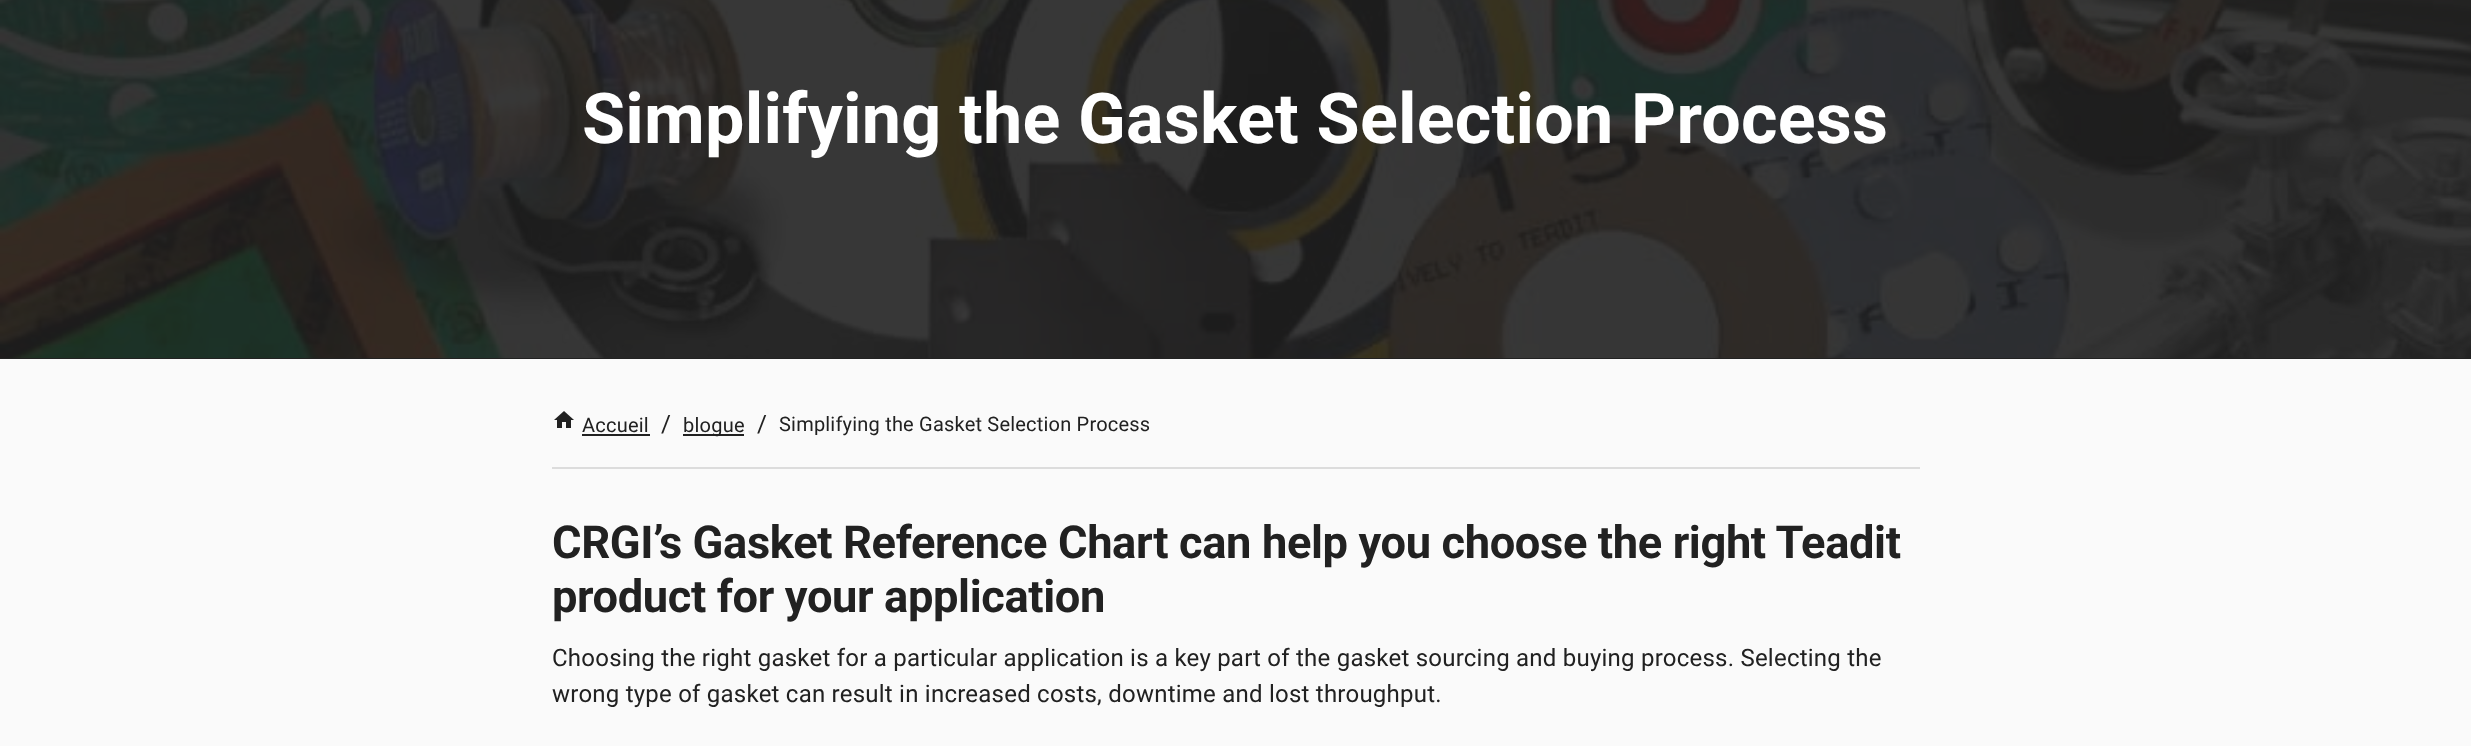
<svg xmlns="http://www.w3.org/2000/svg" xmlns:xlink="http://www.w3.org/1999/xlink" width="2471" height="746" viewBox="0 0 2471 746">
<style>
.cls-1{font:bold 70.1px Roboto;letter-spacing:0.2px;fill:#ffffff}
.cls-2{font:20px Roboto;letter-spacing:0.23px;fill:#212121}
.cls-3{font:24px Roboto;letter-spacing:0.23px;fill:#212121}
.cls-4{font:20px Roboto;letter-spacing:0.2px;fill:#212121}
.cls-5{font:bold 45.25px Roboto;letter-spacing:-0.38px;fill:#212121}
</style>
<rect width="100%" height="100%" fill="#fafafa"/>
<rect fill="#222222" x="0" y="358" width="2471" height="1"/>
<image xlink:href="image0.png" x="0" y="0" width="2471" height="358"/>
<image xlink:href="image1.png" x="554" y="411" width="20" height="17"/>
<rect fill="#212121" x="582" y="434" width="68" height="2"/>
<rect fill="#212121" x="683" y="434" width="61" height="2"/>
<rect fill="#dcdcdc" x="552" y="467" width="1368" height="2"/>
<text class="cls-1" x="582" y="143">Simplifying the Gasket Selection Process</text>
<text class="cls-2" x="582" y="432">Accueil</text>
<text class="cls-3" x="661" y="432">/</text>
<text class="cls-2" x="683" y="432">blogue</text>
<text class="cls-3" x="757" y="432">/</text>
<text class="cls-4" x="779" y="431">Simplifying the Gasket Selection Process</text>
<text class="cls-5"><tspan x="552" y="558">CRGI’s Gasket Reference Chart can help you choose the right Teadit</tspan><tspan x="552" y="612">product for your application</tspan></text>
<text class="cls-3"><tspan x="552" y="666">Choosing the right gasket for a particular application is a key part of the gasket sourcing and buying process. Selecting the</tspan><tspan x="552" y="702">wrong type of gasket can result in increased costs, downtime and lost throughput.</tspan></text>
</svg>
